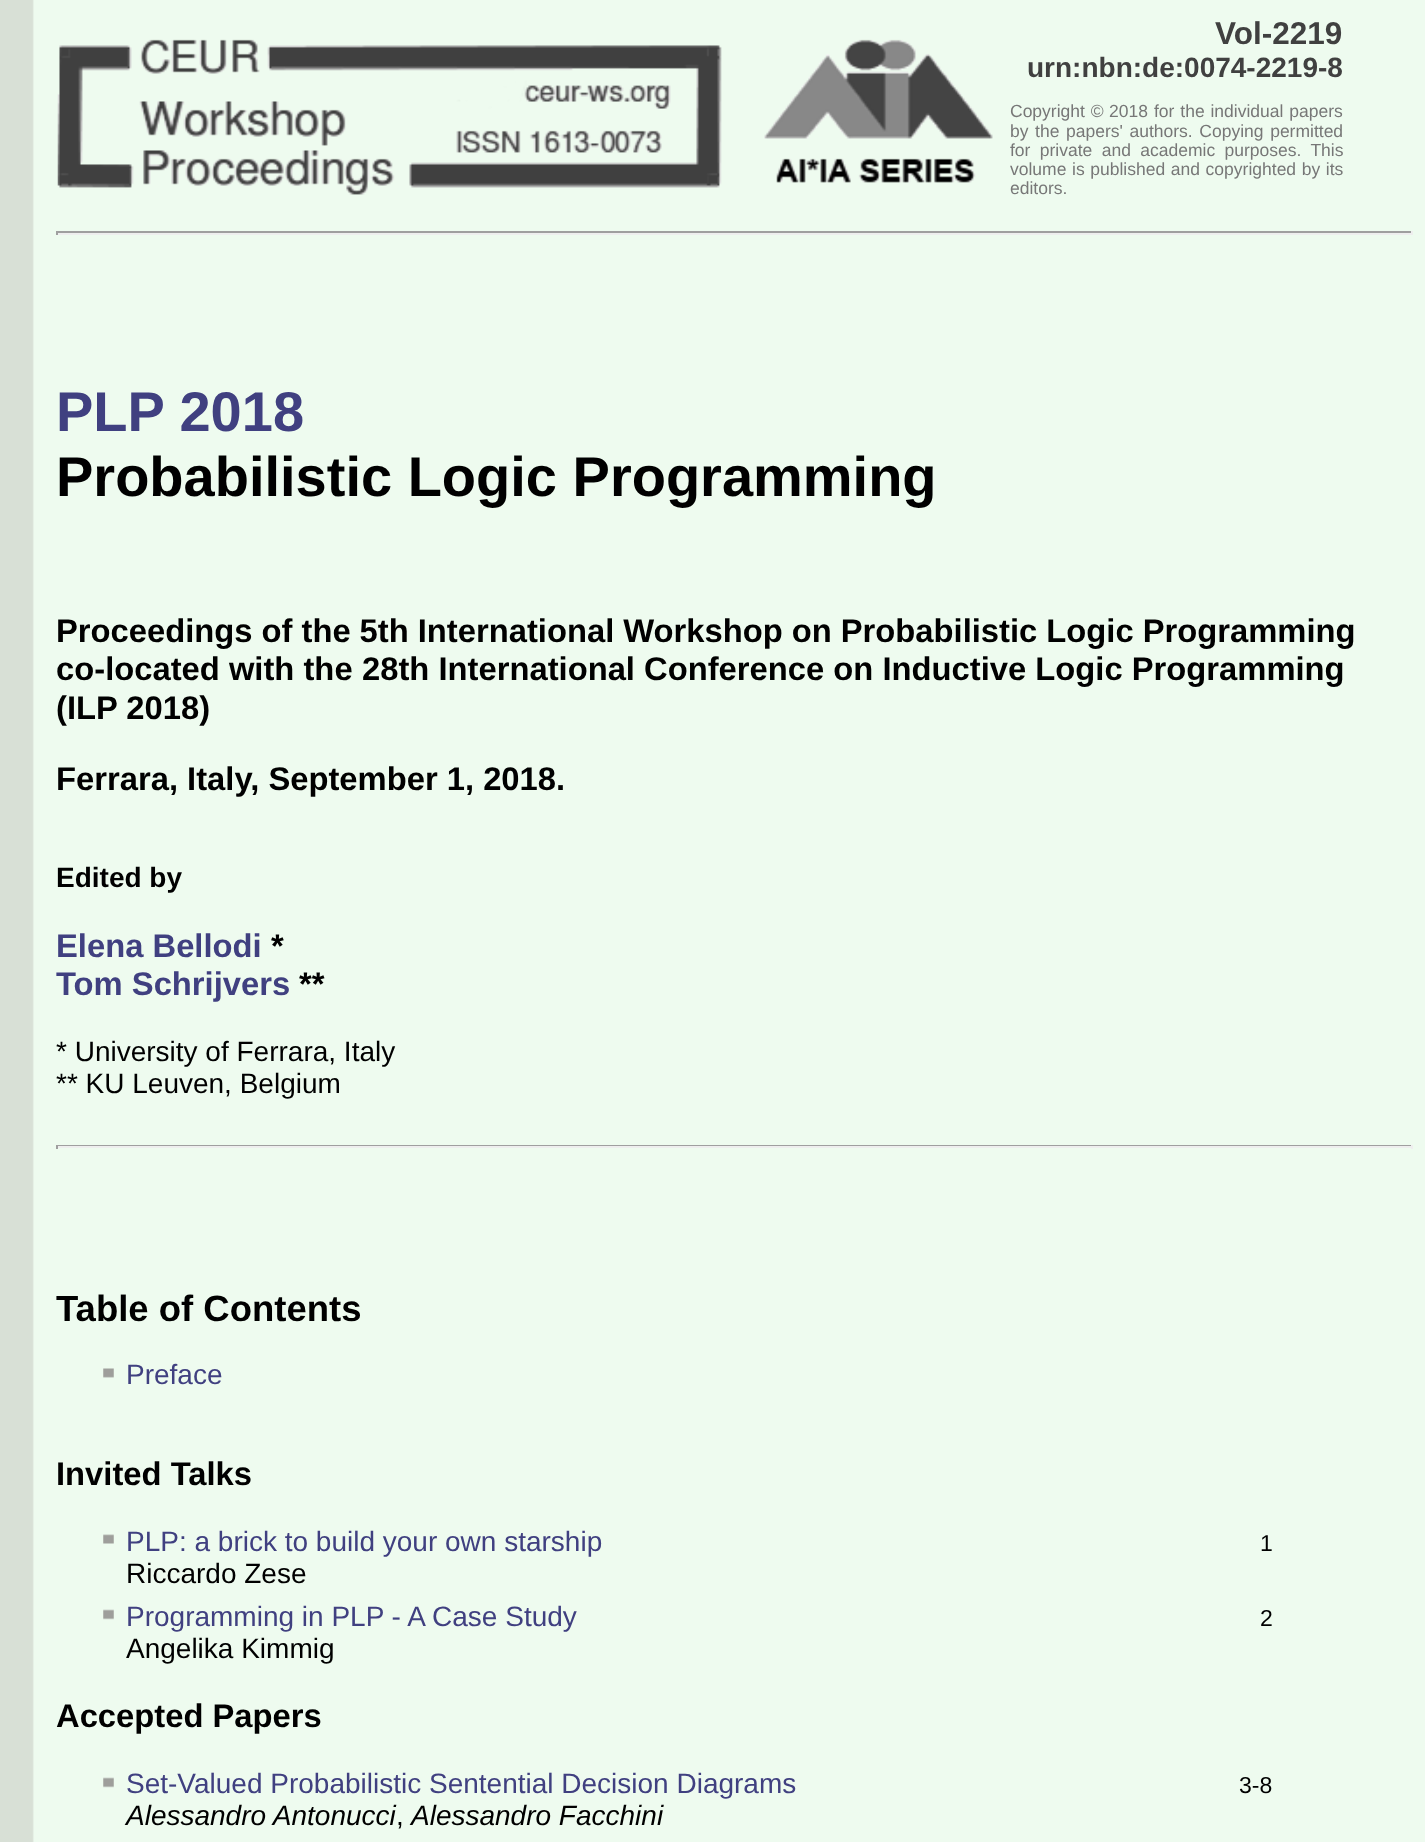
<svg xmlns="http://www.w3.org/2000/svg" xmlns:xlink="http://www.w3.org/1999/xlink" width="1425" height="1842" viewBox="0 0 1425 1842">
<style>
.cls-1{font:bold 31.5px Liberation Sans;fill:#404040}
.cls-2{font:bold 28px Liberation Sans;fill:#404040}
.cls-3{font:17.5px Liberation Sans;fill:#777777}
.cls-4{font:bold 56px Liberation Sans;fill:#404080}
.cls-5{font:bold 56px Liberation Sans;fill:#000000}
.cls-6{font:bold 32.75px Liberation Sans;fill:#000000}
.cls-7{font:bold 28px Liberation Sans;fill:#000000}
.cls-8{font:bold 32.75px Liberation Sans;fill:#404080}
.cls-9{font:28px Liberation Sans;fill:#000000}
.cls-10{font:bold 36.5px Liberation Sans;fill:#000000}
.cls-11{font:28px Liberation Sans;fill:#404080}
.cls-12{font:23px Liberation Sans;fill:#000000}
.cls-13{font:italic 28px Liberation Sans;fill:#000000}
</style>
<rect width="100%" height="100%" fill="#ffffff"/>
<image xlink:href="image0.png" x="0" y="0" width="1425" height="1842"/>
<image xlink:href="image1.png" x="57" y="39" width="665" height="156"/>
<image xlink:href="image2.png" x="764" y="39" width="229" height="144"/>
<rect fill="#9f9f9f" x="56" y="231" width="1356" height="2"/>
<rect fill="#eeeeee" x="1411" y="231" width="2" height="4"/>
<rect fill="#eeeeee" x="56" y="233" width="1356" height="2"/>
<rect fill="#9f9f9f" x="56" y="231" width="2" height="4"/>
<rect fill="#9f9f9f" x="56" y="1145" width="1356" height="1"/>
<rect fill="#eeeeee" x="1411" y="1145" width="2" height="4"/>
<rect fill="#eeeeee" x="56" y="1146" width="1356" height="2"/>
<rect fill="#9f9f9f" x="56" y="1145" width="2" height="4"/>
<image xlink:href="image3.png" x="103" y="1368" width="11" height="10"/>
<image xlink:href="image4.png" x="103" y="1534" width="11" height="10"/>
<image xlink:href="image5.png" x="103" y="1609" width="11" height="11"/>
<image xlink:href="image5.png" x="103" y="1777" width="11" height="11"/>
<text class="cls-1" x="1215" y="44">Vol-2219</text>
<text class="cls-2" x="1027" y="77">urn:nbn:de:0074-2219-8</text>
<text class="cls-3" x="1010" y="117" word-spacing="1">Copyright ©</text>
<text class="cls-3" x="1109" y="117">2018</text>
<text class="cls-3" x="1154" y="117" word-spacing="1">for the individual papers</text>
<text class="cls-3"><tspan x="1010" y="137" word-spacing="1.75">by the papers' authors. Copying permitted</tspan><tspan x="1010" y="156" word-spacing="4.5">for private and academic purposes. This</tspan><tspan x="1010" y="175" word-spacing="0.75">volume is published and copyrighted by its</tspan><tspan x="1010" y="194">editors.</tspan></text>
<text class="cls-4" x="56" y="431">PLP 2018</text>
<text class="cls-5" x="56" y="496">Probabilistic Logic Programming</text>
<text class="cls-6"><tspan x="56" y="642" word-spacing="-0.1">Proceedings of the 5th International Workshop on Probabilistic Logic Programming</tspan><tspan x="56" y="680">co-located with the</tspan></text>
<text class="cls-6" x="362" y="680">28th International Conference on Inductive Logic Programming</text>
<text class="cls-6" x="56" y="719">(ILP 2018)</text>
<text class="cls-6" x="56" y="790">Ferrara, Italy, September 1, 2018</text>
<text class="cls-6" x="556" y="790">.</text>
<text class="cls-7" x="56" y="887">Edited by</text>
<text class="cls-8" x="56" y="957">Elena Bellodi</text>
<text class="cls-6" x="271" y="957">*</text>
<text class="cls-8" x="56" y="995">Tom Schrijvers</text>
<text class="cls-6" x="299" y="995">**</text>
<text class="cls-9"><tspan x="56" y="1061">* University of Ferrara, Italy</tspan><tspan x="56" y="1093">** KU Leuven, Belgium</tspan></text>
<text class="cls-10" x="56" y="1321">Table of Contents</text>
<text class="cls-11" x="126" y="1384">Preface</text>
<text class="cls-6" x="56" y="1485">Invited Talks</text>
<text class="cls-11" x="126" y="1551">PLP: a brick to build your own starship</text>
<text class="cls-12" x="1260" y="1551">1</text>
<text class="cls-9" x="126" y="1583">Riccardo Zese</text>
<text class="cls-11" x="126" y="1626">Programming in PLP - A Case Study</text>
<text class="cls-12" x="1260" y="1626">2</text>
<text class="cls-9" x="126" y="1658">Angelika Kimmig</text>
<text class="cls-6" x="56" y="1727">Accepted Papers</text>
<text class="cls-11" x="126" y="1793">Set-Valued Probabilistic Sentential Decision Diagrams</text>
<text class="cls-12" x="1239" y="1793">3-8</text>
<text class="cls-13" x="126" y="1825">Alessandro Antonucci</text>
<text class="cls-9" x="396" y="1825">,</text>
<text class="cls-13" x="411" y="1825">Alessandro Facchini</text>
</svg>
